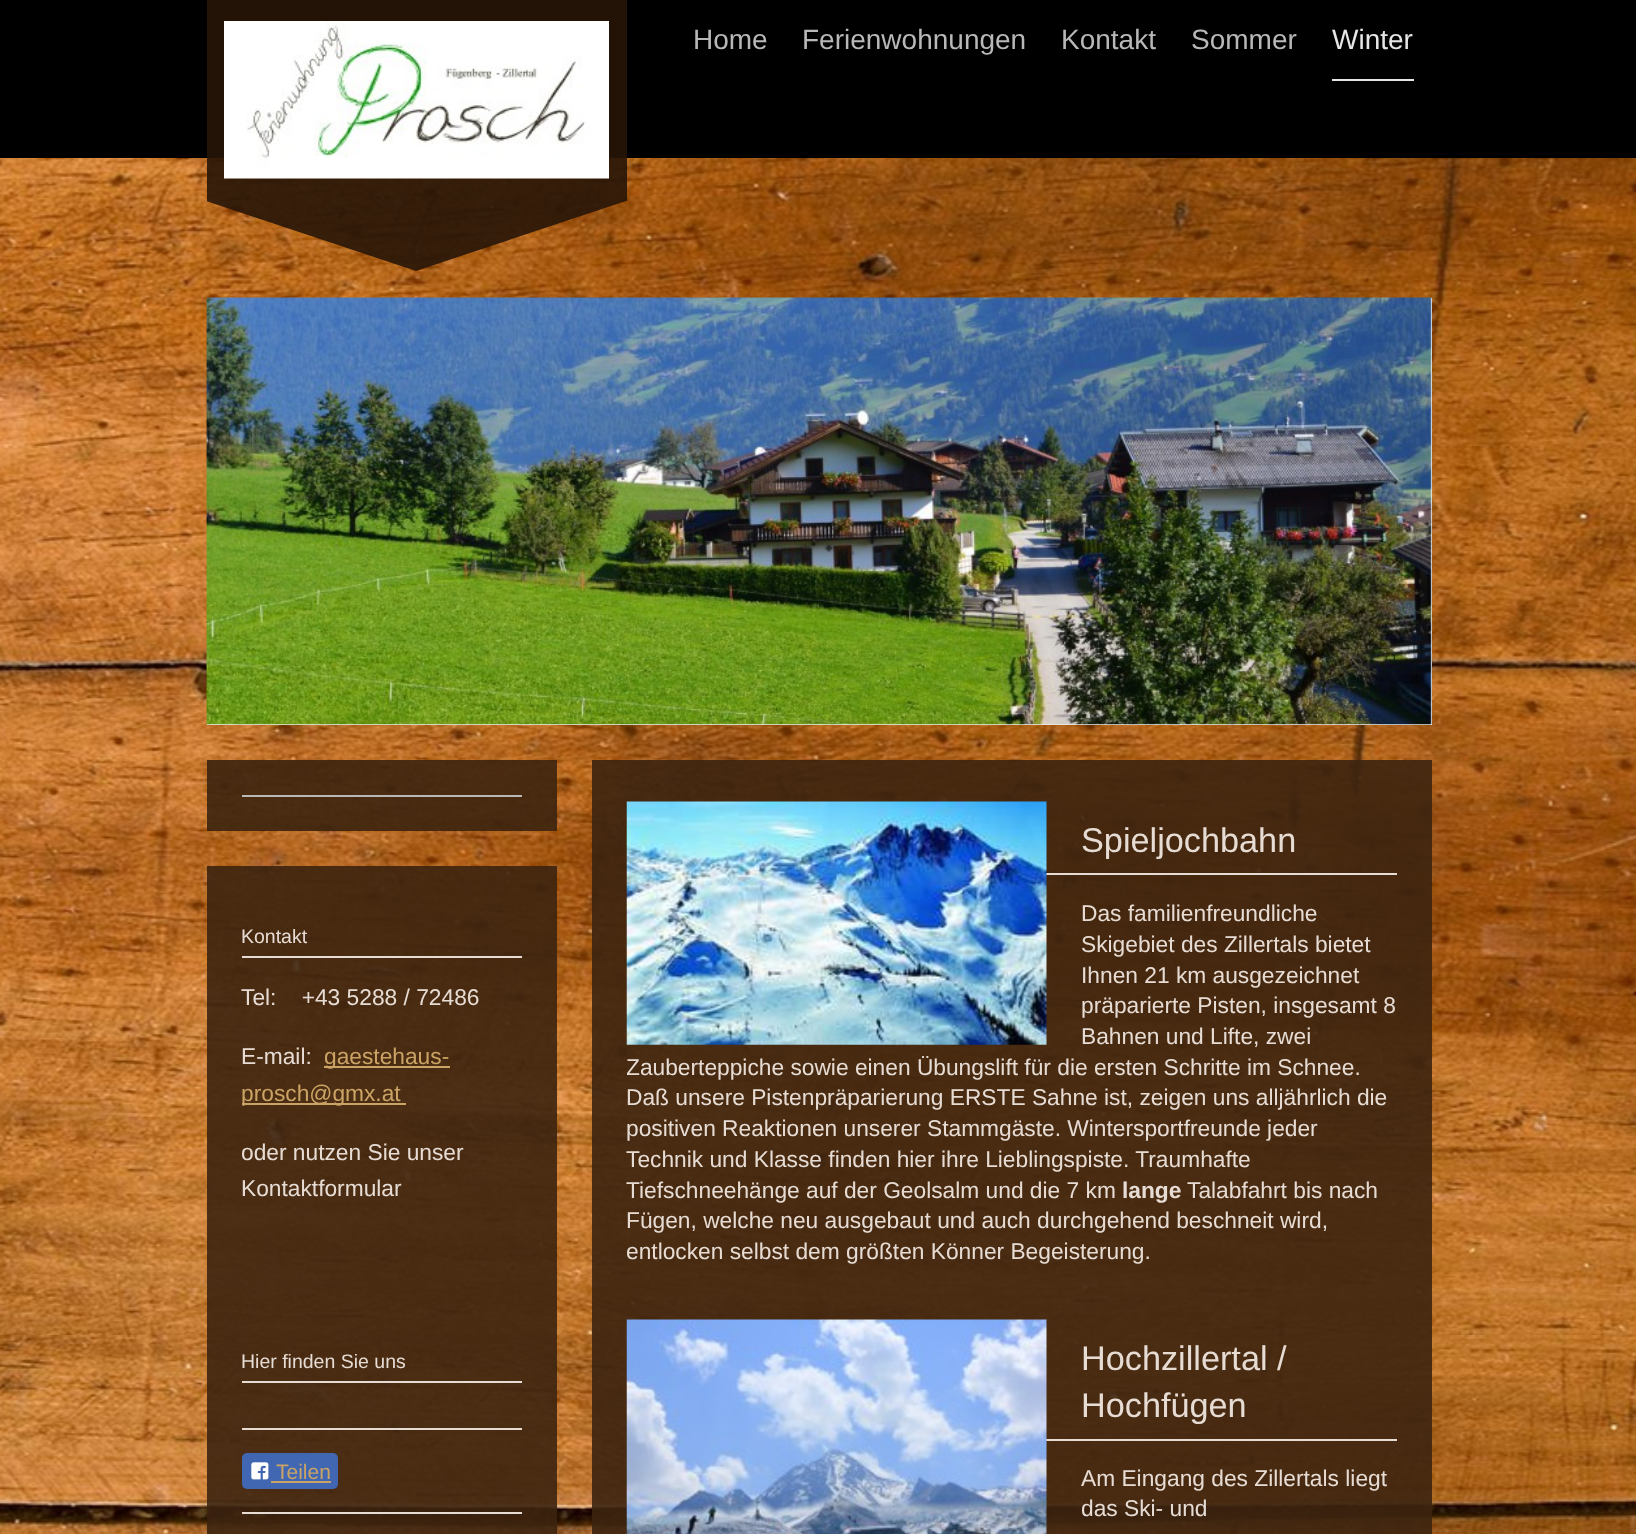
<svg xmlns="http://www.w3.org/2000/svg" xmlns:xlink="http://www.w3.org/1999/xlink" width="1636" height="1534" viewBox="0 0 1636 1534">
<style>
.cls-1{font:28px Liberation Sans;fill:#b8b8b8}
.cls-2{font:28px Liberation Sans;fill:#e6e6e6}
.cls-3{font:19.5px Liberation Sans;fill:#e7dcd4}
.cls-4{font:22.75px Liberation Sans;fill:#e7dcd4}
.cls-5{font:22.75px Liberation Sans;fill:#cba465}
.cls-6{font:21px Liberation Sans;fill:#cba465}
.cls-7{font:34.25px Liberation Sans;fill:#e7dcd4}
.cls-8{font:bold 22.75px Liberation Sans;fill:#e7dcd4}
</style>
<defs>
<clipPath id="clip1"><rect x="627" y="795" width="770" height="495"/></clipPath>
</defs>
<rect width="100%" height="100%" fill="#ffffff"/>
<image xlink:href="image0.png" x="0" y="158" width="1636" height="1376"/>
<rect fill="#000000" x="0" y="0" width="1636" height="158"/>
<rect fill="#271508" fill-opacity="0.9" x="207" y="0" width="420" height="201"/>
<image xlink:href="image1.png" x="224" y="21" width="385" height="158"/>
<path fill="#271508" fill-opacity="0.9" d="M206 201H626L416 271Z"/>
<rect fill="#e6e6e6" x="1332" y="79" width="82" height="2"/>
<image xlink:href="image2.png" x="206" y="297" width="1226" height="428"/>
<rect fill="#eeeeee" x="207" y="298" width="1225" height="427"/>
<image xlink:href="image3.png" x="206" y="297" width="1226" height="428"/>
<rect fill="#3c230f" fill-opacity="0.9" x="207" y="760" width="350" height="71"/>
<rect fill="#b8b8b8" x="242" y="795" width="280" height="2"/>
<rect fill="#3c230f" fill-opacity="0.9" x="207" y="866" width="350" height="668"/>
<rect fill="#e7dcd4" x="242" y="956" width="280" height="2"/>
<rect fill="#cba465" x="324" y="1066" width="126" height="2"/>
<rect fill="#cba465" x="242" y="1103" width="164" height="2"/>
<rect fill="#e7dcd4" x="242" y="1381" width="280" height="2"/>
<rect fill="#e7dcd4" x="242" y="1428" width="280" height="2"/>
<rect fill="#4267b2" x="242" y="1453" width="96" height="36" rx="5"/>
<image xlink:href="image4.png" x="251" y="1462" width="18" height="18"/>
<rect fill="#cba465" x="271" y="1481" width="60" height="2"/>
<rect fill="#e7dcd4" x="242" y="1512" width="280" height="2"/>
<rect fill="#3c230f" fill-opacity="0.9" x="592" y="760" width="840" height="774"/>
<rect fill="#e7dcd4" x="1046" y="873" width="351" height="2"/>
<image xlink:href="image5.png" x="626" y="801" width="421" height="244"/>
<rect fill="#e7dcd4" x="1046" y="1439" width="351" height="2"/>
<image xlink:href="image6.png" x="626" y="1319" width="421" height="215"/>
<text class="cls-1" x="693" y="49">Home</text>
<text class="cls-1" x="802" y="49">Ferienwohnungen</text>
<text class="cls-1" x="1061" y="49">Kontakt</text>
<text class="cls-1" x="1191" y="49">Sommer</text>
<text class="cls-2" x="1332" y="49">Winter</text>
<text class="cls-3" x="241" y="943">Kontakt</text>
<text class="cls-4" xml:space="preserve" x="241" y="1005">Tel:    +43 5288 / 72486</text>
<text class="cls-4" x="241" y="1064">E-mail:</text>
<text class="cls-5" x="324" y="1064">gaestehaus-</text>
<text class="cls-5" x="241" y="1101">prosch@gmx.at</text>
<text class="cls-4"><tspan x="241" y="1160">oder nutzen Sie unser</tspan><tspan x="241" y="1196">Kontaktformular</tspan></text>
<text class="cls-3" x="241" y="1368">Hier finden Sie uns</text>
<text class="cls-6" x="276" y="1479">Teilen</text>
<text class="cls-7" x="1081" y="852">Spieljochbahn</text>
<text class="cls-4"><tspan x="1081" y="921">Das familienfreundliche</tspan><tspan x="1081" y="952">Skigebiet des Zillertals bietet</tspan><tspan x="1081" y="983">Ihnen 21 km ausgezeichnet</tspan><tspan x="1081" y="1013">präparierte Pisten, insgesamt 8</tspan><tspan x="1081" y="1044">Bahnen und Lifte, zwei</tspan></text>
<g clip-path="url(#clip1)">
<text class="cls-4" x="626" y="1075">Zauberteppiche sowie einen Übungslift für die ersten Schritte im Schnee.</text>
</g>
<text class="cls-4"><tspan x="626" y="1105">Daß unsere Pistenpräparierung ERSTE Sahne ist, zeigen uns alljährlich die</tspan><tspan x="626" y="1136">positiven Reaktionen unserer Stammgäste. Wintersportfreunde jeder</tspan><tspan x="626" y="1167">Technik und Klasse finden hier ihre Lieblingspiste. Traumhafte</tspan><tspan x="626" y="1198">Tiefschneehänge auf der Geolsalm und die 7 km</tspan></text>
<text class="cls-8" x="1122" y="1198">lange</text>
<text class="cls-4" x="1187" y="1198">Talabfahrt bis nach</text>
<text class="cls-4" x="626" y="1228">Fügen, welche neu ausgebaut und auch durchgehend beschneit wird,</text>
<g clip-path="url(#clip1)">
<text class="cls-4" x="626" y="1259">entlocken selbst dem größten Könner Begeisterung.</text>
</g>
<text class="cls-7"><tspan x="1081" y="1370">Hochzillertal /</tspan><tspan x="1081" y="1417">Hochfügen</tspan></text>
<text class="cls-4"><tspan x="1081" y="1486">Am Eingang des Zillertals liegt</tspan><tspan x="1081" y="1516">das Ski- und</tspan></text>
</svg>
